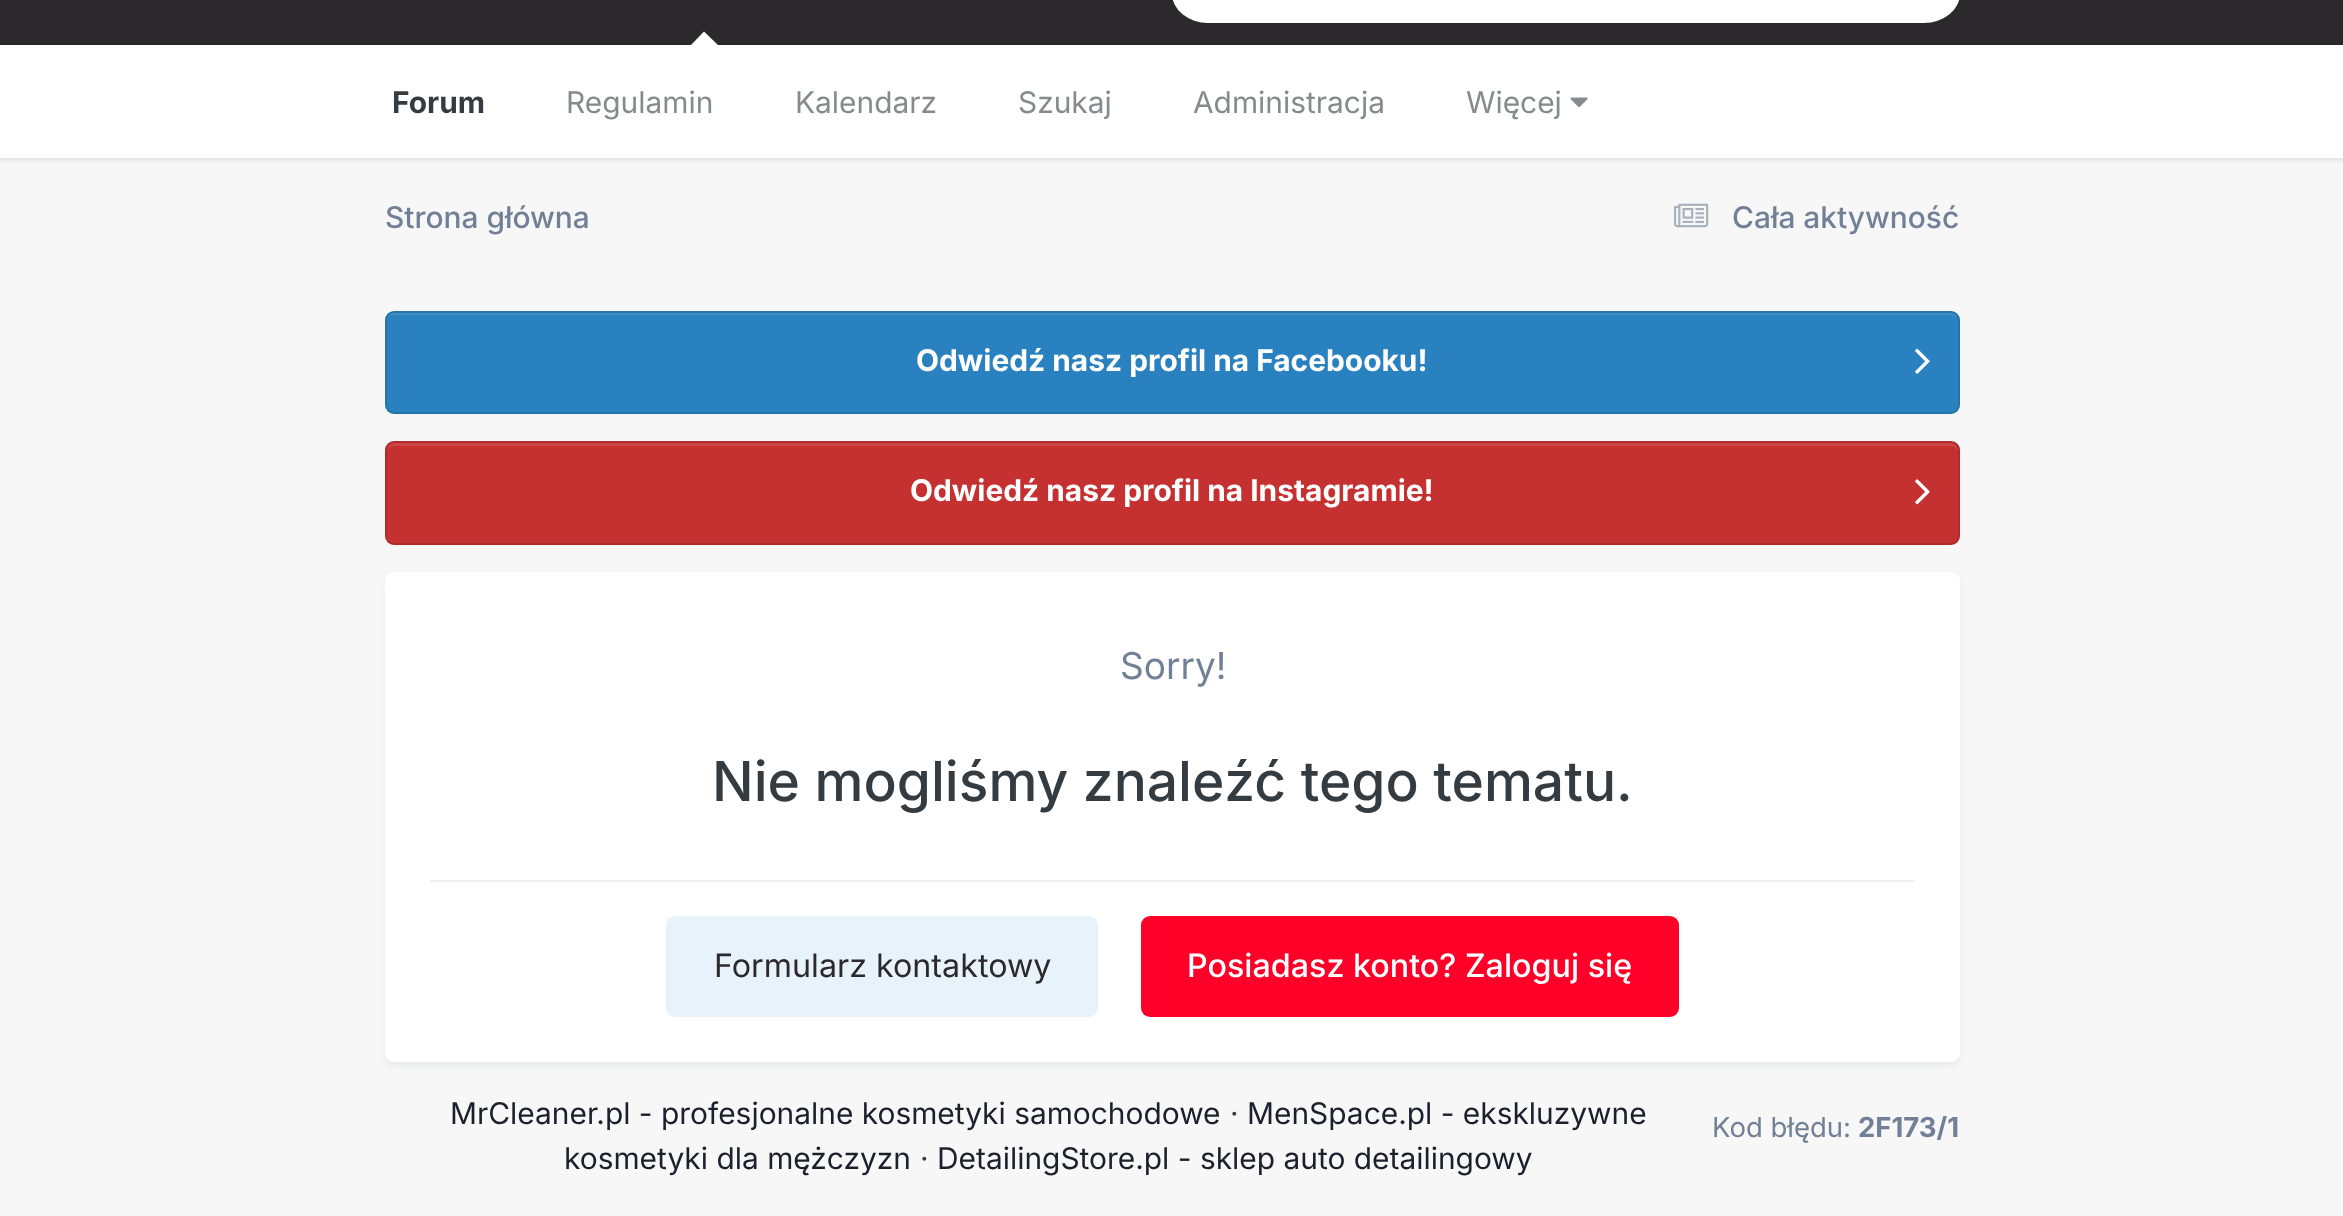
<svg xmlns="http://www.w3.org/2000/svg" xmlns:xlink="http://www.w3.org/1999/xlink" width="2343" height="1216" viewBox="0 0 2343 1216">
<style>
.cls-1{font:bold 29.9px Inter;fill:#353c41}
.cls-2{font:29.9px Inter;fill:#868a8d}
.cls-3{font:500 29.9px Inter;fill:#718096}
.cls-4{font:bold 29.9px Inter;fill:#ffffff}
.cls-5{font:37px Inter;fill:#718096}
.cls-6{font:500 55.1px Inter;fill:#353c41}
.cls-7{font:32.25px Inter;fill:#2c292d}
.cls-8{font:500 32.25px Inter;fill:#ffffff}
.cls-9{font:27.5px Inter;fill:#718096}
.cls-10{font:bold 27.5px Inter;fill:#718096}
.cls-11{font:29.9px Inter;fill:#1a202c}
.cls-12{font:29.9px Inter;fill:#353c41}
</style>
<rect width="100%" height="100%" fill="#f7f7f7"/>
<rect fill="#2c292d" x="0" y="0" width="2343" height="45"/>
<rect fill="#000000" fill-opacity="0.1" filter="blur(2px)" x="0" y="47" width="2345" height="113"/>
<rect fill="#ffffff" x="0" y="45" width="2343" height="113"/>
<rect fill="#ffffff" x="1172" y="-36" width="788" height="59" rx="36"/>
<path fill="#ffffff" d="M718 45H691L704 31.5Z"/>
<image xlink:href="image0.png" x="1570" y="97" width="18" height="11"/>
<image xlink:href="image1.png" x="1674" y="203" width="35" height="25"/>
<rect fill="#2981bf" x="385" y="311" width="1575" height="103" rx="9"/>
<path fill="#3e8ec5" d="M394 315H1951C1954 315 1958 318 1958 322C1958 318 1956 313 1951 313H394C389 313 387 318 387 322C387 318 390 315 394 315Z"/>
<rect fill="none" stroke="#000000" stroke-opacity="0.1" stroke-width="2" x="386" y="312" width="1573" height="101" rx="8"/>
<image xlink:href="image2.png" x="1915" y="348" width="15" height="26"/>
<rect fill="#c53030" x="385" y="441" width="1575" height="104" rx="9"/>
<path fill="#cb4545" d="M394 446H1951C1954 446 1958 449 1958 452C1958 448 1956 443 1951 443H394C389 443 387 448 387 452C387 449 390 446 394 446Z"/>
<rect fill="none" stroke="#000000" stroke-opacity="0.1" stroke-width="2" x="386" y="442" width="1573" height="102" rx="8"/>
<image xlink:href="image3.png" x="1915" y="479" width="15" height="26"/>
<rect fill="#2d3748" fill-opacity="0.1" filter="blur(4.5px)" x="387" y="578" width="1571" height="486" rx="7"/>
<rect fill="#ffffff" x="385" y="572" width="1575" height="490" rx="9"/>
<rect fill="#efeff0" x="430" y="880" width="1485" height="2"/>
<rect fill="#e8f2fa" x="666" y="916" width="432" height="101" rx="9"/>
<rect fill="#ff0028" x="1141" y="916" width="538" height="101" rx="9"/>
<text class="cls-1" x="392" y="113">Forum</text>
<text class="cls-2" x="566" y="113">Regulamin</text>
<text class="cls-2" x="795" y="113">Kalendarz</text>
<text class="cls-2" x="1018" y="113">Szukaj</text>
<text class="cls-2" x="1193" y="113">Administracja</text>
<text class="cls-2" x="1466" y="113">Więcej</text>
<text class="cls-3" x="385" y="228">Strona główna</text>
<text class="cls-3" x="1732" y="228">Cała aktywność</text>
<text class="cls-4" x="916" y="371">Odwiedź nasz profil na Facebooku!</text>
<text class="cls-4" x="910" y="501">Odwiedź nasz profil na Instagramie!</text>
<text class="cls-5" x="1120" y="679">Sorry!</text>
<text class="cls-6" x="712" y="801">Nie mogliśmy znaleźć tego tematu.</text>
<text class="cls-7" x="714" y="977">Formularz kontaktowy</text>
<text class="cls-8" x="1187" y="977">Posiadasz konto? Zaloguj się</text>
<text class="cls-9" x="1712" y="1137">Kod błędu:</text>
<text class="cls-10" x="1858" y="1137">2F173/1</text>
<text class="cls-11" x="450" y="1124">MrCleaner.pl - profesjonalne kosmetyki samochodowe</text>
<text class="cls-12" x="1230" y="1124">·</text>
<text class="cls-11" x="1247" y="1124">MenSpace.pl - ekskluzywne</text>
<text class="cls-11" x="564" y="1169">kosmetyki dla mężczyzn</text>
<text class="cls-12" x="920" y="1169">·</text>
<text class="cls-11" x="937" y="1169">DetailingStore.pl - sklep auto detailingowy</text>
</svg>
